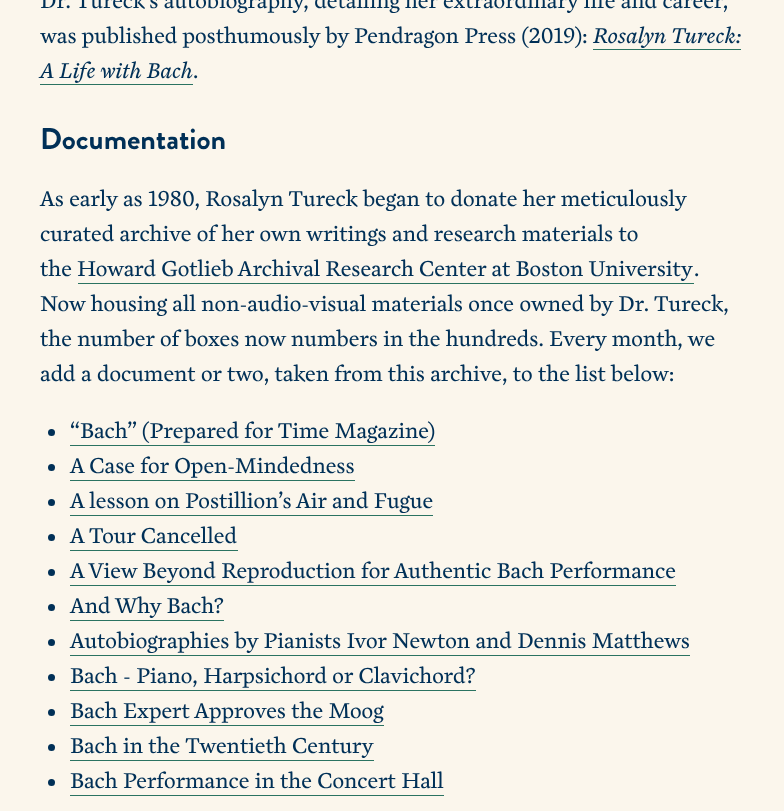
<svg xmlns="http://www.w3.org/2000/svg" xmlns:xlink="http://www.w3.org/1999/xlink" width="784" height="811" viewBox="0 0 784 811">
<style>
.cls-1{font:22.5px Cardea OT;fill:#003057}
.cls-2{font:italic 22.5px Cardea OT;fill:#003057}
.cls-3{font:bold 30px Brandon Grotesque;fill:#003057}
</style>
<rect width="100%" height="100%" fill="#fbf6ec"/>
<rect fill="#2a7361" x="593" y="49" width="148" height="1"/>
<rect fill="#2a7361" x="40" y="84" width="153" height="1"/>
<rect fill="#2a7361" x="78" y="283" width="616" height="1"/>
<circle fill="#003057" cx="51.5" cy="432.5" r="3.5"/>
<rect fill="#2a7361" x="70" y="445" width="365" height="1"/>
<circle fill="#003057" cx="51.5" cy="467.5" r="3.5"/>
<rect fill="#2a7361" x="70" y="480" width="285" height="1"/>
<circle fill="#003057" cx="51.5" cy="502.5" r="3.5"/>
<rect fill="#2a7361" x="70" y="515" width="363" height="1"/>
<circle fill="#003057" cx="51.5" cy="537.5" r="3.5"/>
<rect fill="#2a7361" x="70" y="550" width="168" height="1"/>
<circle fill="#003057" cx="51.5" cy="572.5" r="3.5"/>
<rect fill="#2a7361" x="70" y="585" width="606" height="1"/>
<circle fill="#003057" cx="51.5" cy="607.5" r="3.5"/>
<rect fill="#2a7361" x="70" y="620" width="154" height="1"/>
<circle fill="#003057" cx="51.5" cy="642.5" r="3.5"/>
<rect fill="#2a7361" x="70" y="655" width="620" height="1"/>
<circle fill="#003057" cx="51.5" cy="677.5" r="3.5"/>
<rect fill="#2a7361" x="70" y="690" width="406" height="1"/>
<circle fill="#003057" cx="51.5" cy="712.5" r="3.5"/>
<rect fill="#2a7361" x="70" y="725" width="314" height="1"/>
<circle fill="#003057" cx="51.5" cy="747.5" r="3.5"/>
<rect fill="#2a7361" x="70" y="760" width="304" height="1"/>
<circle fill="#003057" cx="51.5" cy="782.5" r="3.5"/>
<rect fill="#2a7361" x="70" y="795" width="374" height="1"/>
<text class="cls-1"><tspan x="40" y="8">Dr. Tureck's autobiography, detailing her extraordinary life and career,</tspan><tspan x="40" y="43">was published posthumously by Pendragon Press (2019):</tspan></text>
<text class="cls-2" x="593" y="43">Rosalyn Tureck:</text>
<text class="cls-2" x="40" y="78">A Life with Bach</text>
<text class="cls-1" x="193" y="78">.</text>
<text class="cls-3" x="40" y="149">Documentation</text>
<text class="cls-1"><tspan x="40" y="206">As early as 1980, Rosalyn Tureck began to donate her meticulously</tspan><tspan x="40" y="241">curated archive of her own writings and research materials to</tspan><tspan x="40" y="276">the</tspan></text>
<text class="cls-1" x="77" y="276" word-spacing="-0.25">Howard Gotlieb Archival Research Center at Boston University</text>
<text class="cls-1" x="694" y="276">.</text>
<text class="cls-1"><tspan x="40" y="311">Now housing all non-audio-visual materials once owned by Dr. Tureck,</tspan><tspan x="40" y="346">the number of boxes now numbers in the hundreds. Every month, we</tspan><tspan x="40" y="381">add a document or two, taken from this archive, to the list below:</tspan></text>
<text class="cls-1"><tspan x="70" y="438">“Bach” (Prepared for Time Magazine)</tspan><tspan x="70" y="473">A Case for Open-Mindedness</tspan><tspan x="70" y="508">A lesson on Postillion’s Air and Fugue</tspan><tspan x="70" y="543">A Tour Cancelled</tspan><tspan x="70" y="578">A View Beyond Reproduction for Authentic Bach Performance</tspan><tspan x="70" y="613">And Why Bach?</tspan><tspan x="70" y="648">Autobiographies by Pianists Ivor Newton and Dennis Matthews</tspan><tspan x="70" y="683">Bach - Piano, Harpsichord or Clavichord?</tspan><tspan x="70" y="718">Bach Expert Approves the Moog</tspan><tspan x="70" y="753">Bach in the Twentieth Century</tspan><tspan x="70" y="788">Bach Performance in the Concert Hall</tspan></text>
</svg>
